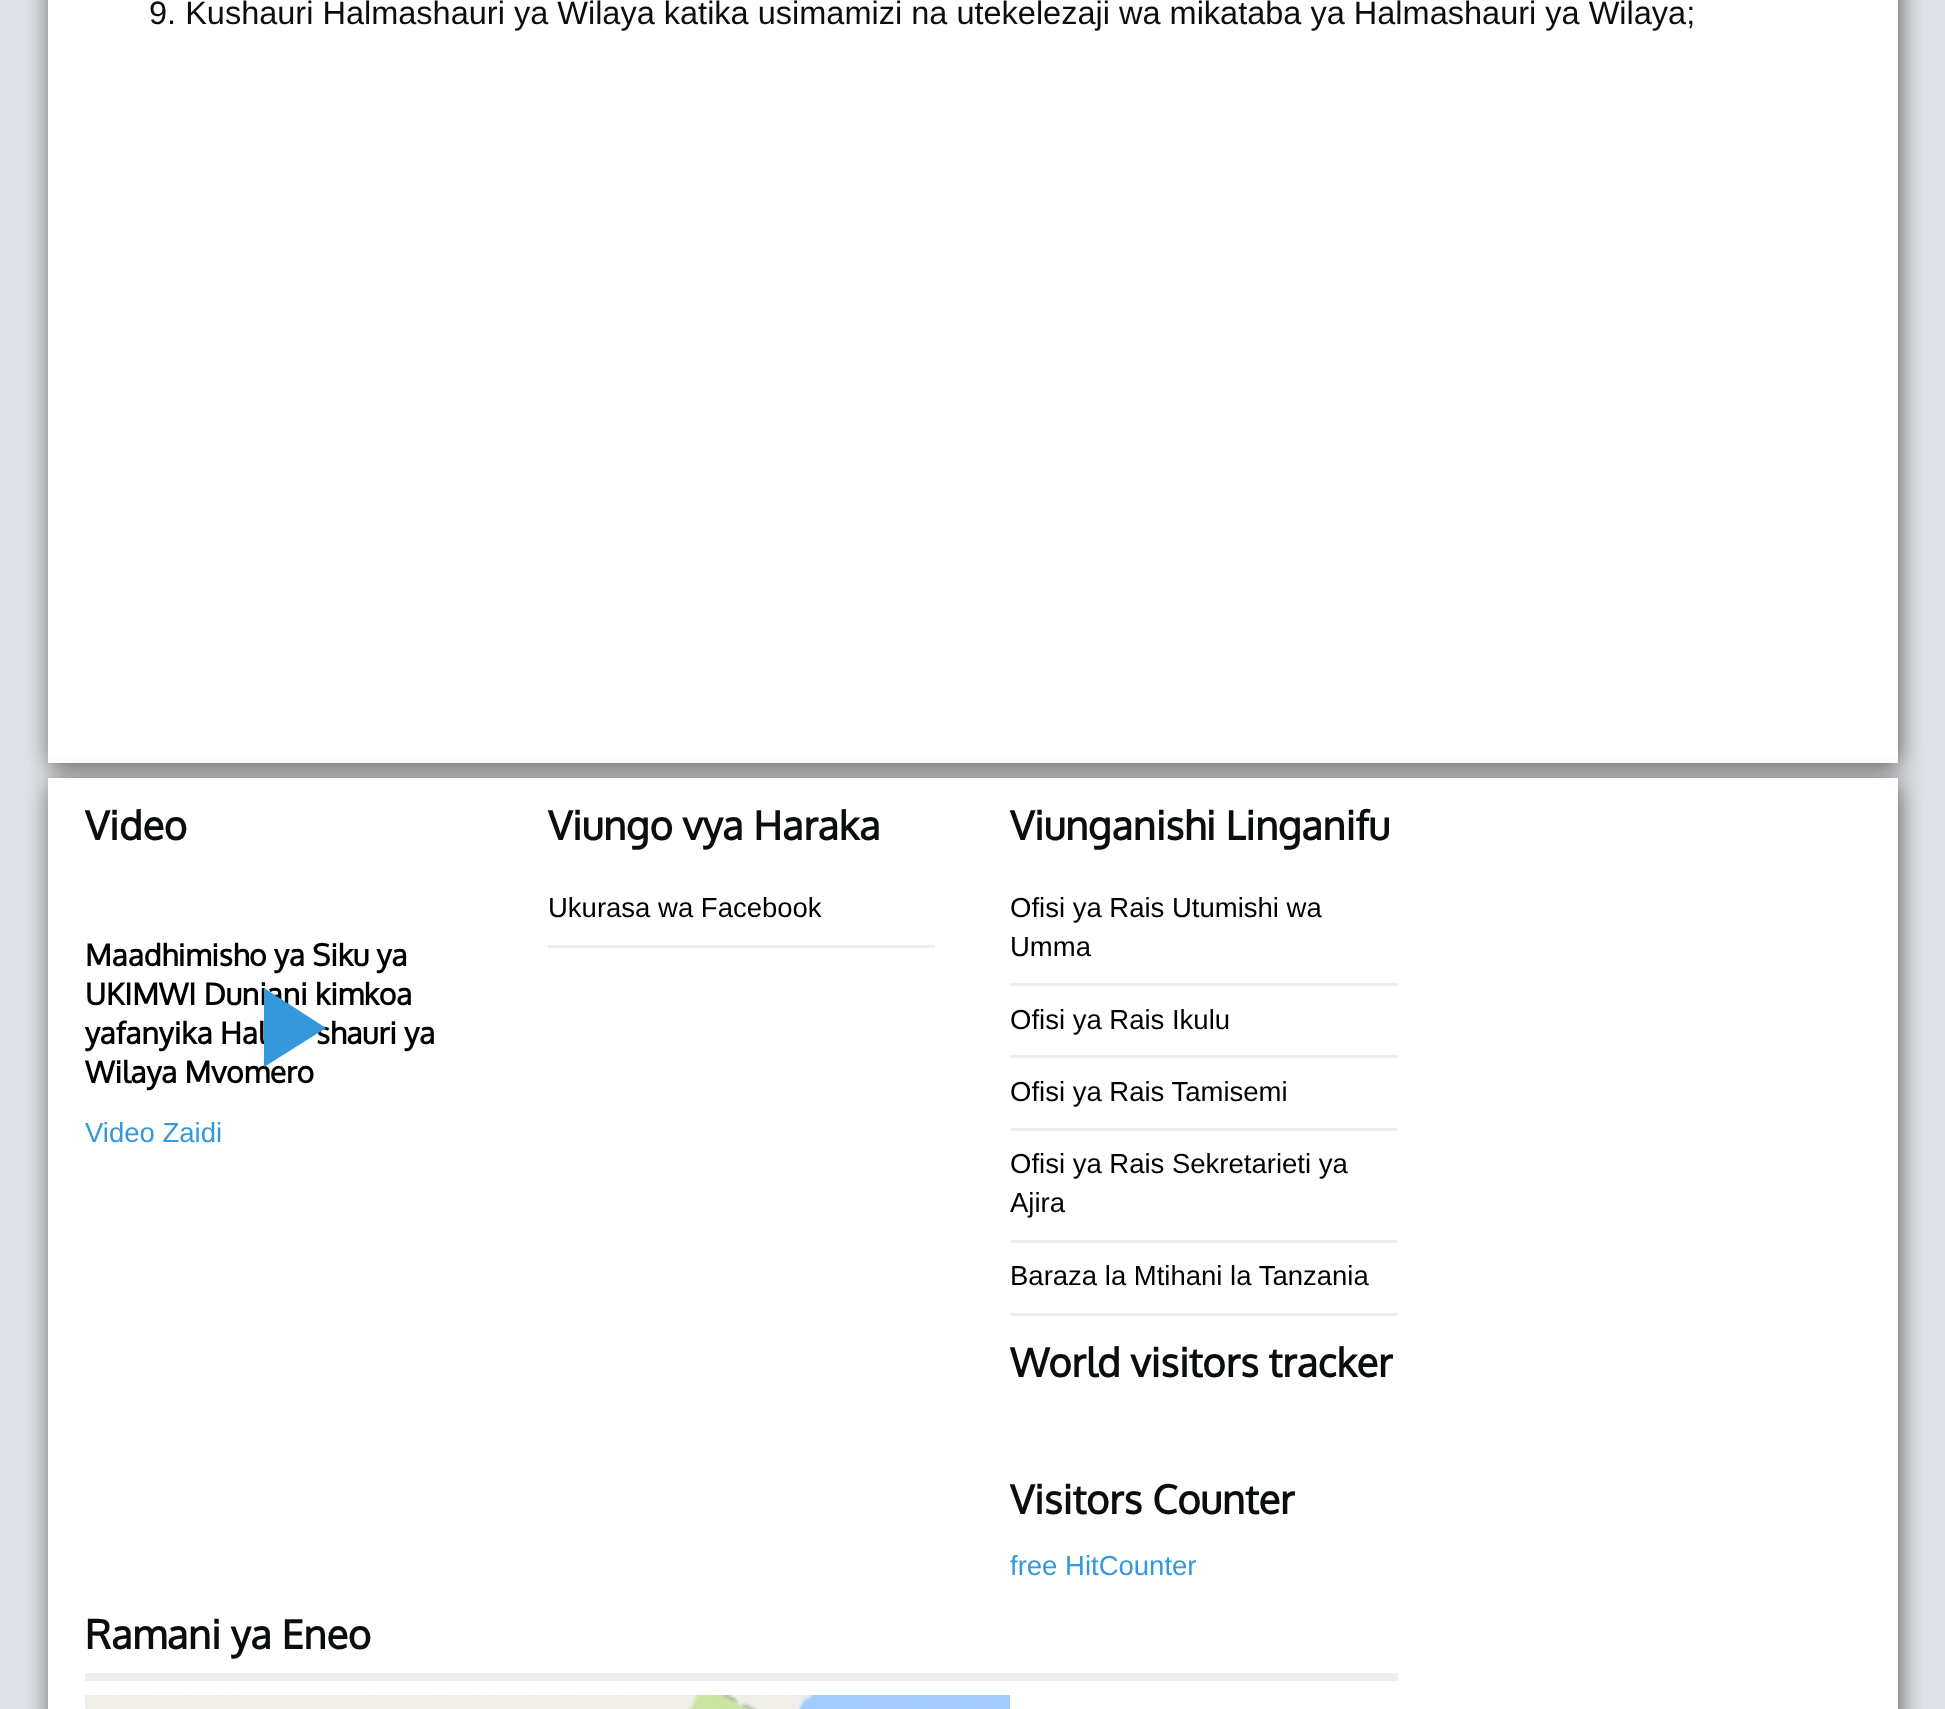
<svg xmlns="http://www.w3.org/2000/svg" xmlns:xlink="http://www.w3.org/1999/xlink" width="1945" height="1709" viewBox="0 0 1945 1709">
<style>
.cls-1{font:32.5px Liberation Sans;fill:#0a0e0e}
.cls-2{font:bold 39.75px Oxygen;fill:#0a0e0e}
.cls-3{font:bold 30px Oxygen;fill:#000000}
.cls-4{font:27.5px Liberation Sans;fill:#3498db}
.cls-5{font:27.5px Liberation Sans;fill:#000000}
</style>
<rect width="100%" height="100%" fill="#dfe3e8"/>
<rect fill="#323232" fill-opacity="0.75" filter="blur(12.5px)" x="50" y="-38" width="1850" height="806"/>
<rect fill="#ffffff" x="48" y="0" width="1850" height="763"/>
<rect fill="#323232" fill-opacity="0.75" filter="blur(12.5px)" x="50" y="783" width="1850" height="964"/>
<rect fill="#ffffff" x="48" y="778" width="1850" height="931"/>
<rect fill="#eeeeee" x="548" y="945" width="387" height="3"/>
<rect fill="#eeeeee" x="1010" y="983" width="388" height="3"/>
<rect fill="#eeeeee" x="1010" y="1055" width="388" height="3"/>
<rect fill="#eeeeee" x="1010" y="1128" width="388" height="3"/>
<rect fill="#eeeeee" x="1010" y="1240" width="388" height="3"/>
<rect fill="#eeeeee" x="1010" y="1313" width="388" height="3"/>
<rect fill="#eeeeee" x="85" y="1673" width="1313" height="8"/>
<image xlink:href="image0.png" x="85" y="1695" width="925" height="14"/>
<text class="cls-1" x="149" y="24">9. Kushauri Halmashauri ya Wilaya katika usimamizi na utekelezaji wa mikataba ya Halmashauri ya Wilaya;</text>
<text class="cls-2" x="85" y="840">Video</text>
<text class="cls-3"><tspan x="85" y="966">Maadhimisho ya Siku ya</tspan><tspan x="85" y="1005">UKIMWI Duniani kimkoa</tspan><tspan x="85" y="1044">yafanyika Hal</tspan></text>
<text class="cls-3" x="316" y="1044">shauri ya</text>
<text class="cls-3" x="85" y="1083">Wilaya Mvomero</text>
<path fill="#3498db" d="M264 988V1067L326 1028Z"/>
<text class="cls-4" x="85" y="1142">Video Zaidi</text>
<text class="cls-2" x="548" y="840">Viungo vya Haraka</text>
<text class="cls-5" x="548" y="917">Ukurasa wa Facebook</text>
<text class="cls-2" x="1010" y="840">Viunganishi Linganifu</text>
<text class="cls-5"><tspan x="1010" y="917">Ofisi ya Rais Utumishi wa</tspan><tspan x="1010" y="956">Umma</tspan></text>
<text class="cls-5" x="1010" y="1029">Ofisi ya Rais Ikulu</text>
<text class="cls-5" x="1010" y="1101">Ofisi ya Rais Tamisemi</text>
<text class="cls-5"><tspan x="1010" y="1173">Ofisi ya Rais Sekretarieti ya</tspan><tspan x="1010" y="1212">Ajira</tspan></text>
<text class="cls-5" x="1010" y="1285">Baraza la Mtihani la Tanzania</text>
<text class="cls-2" x="1010" y="1377">World visitors tracker</text>
<text class="cls-2" x="1010" y="1514">Visitors Counter</text>
<text class="cls-4" x="1010" y="1575">free HitCounter</text>
<text class="cls-2" x="85" y="1649">Ramani ya Eneo</text>
</svg>
